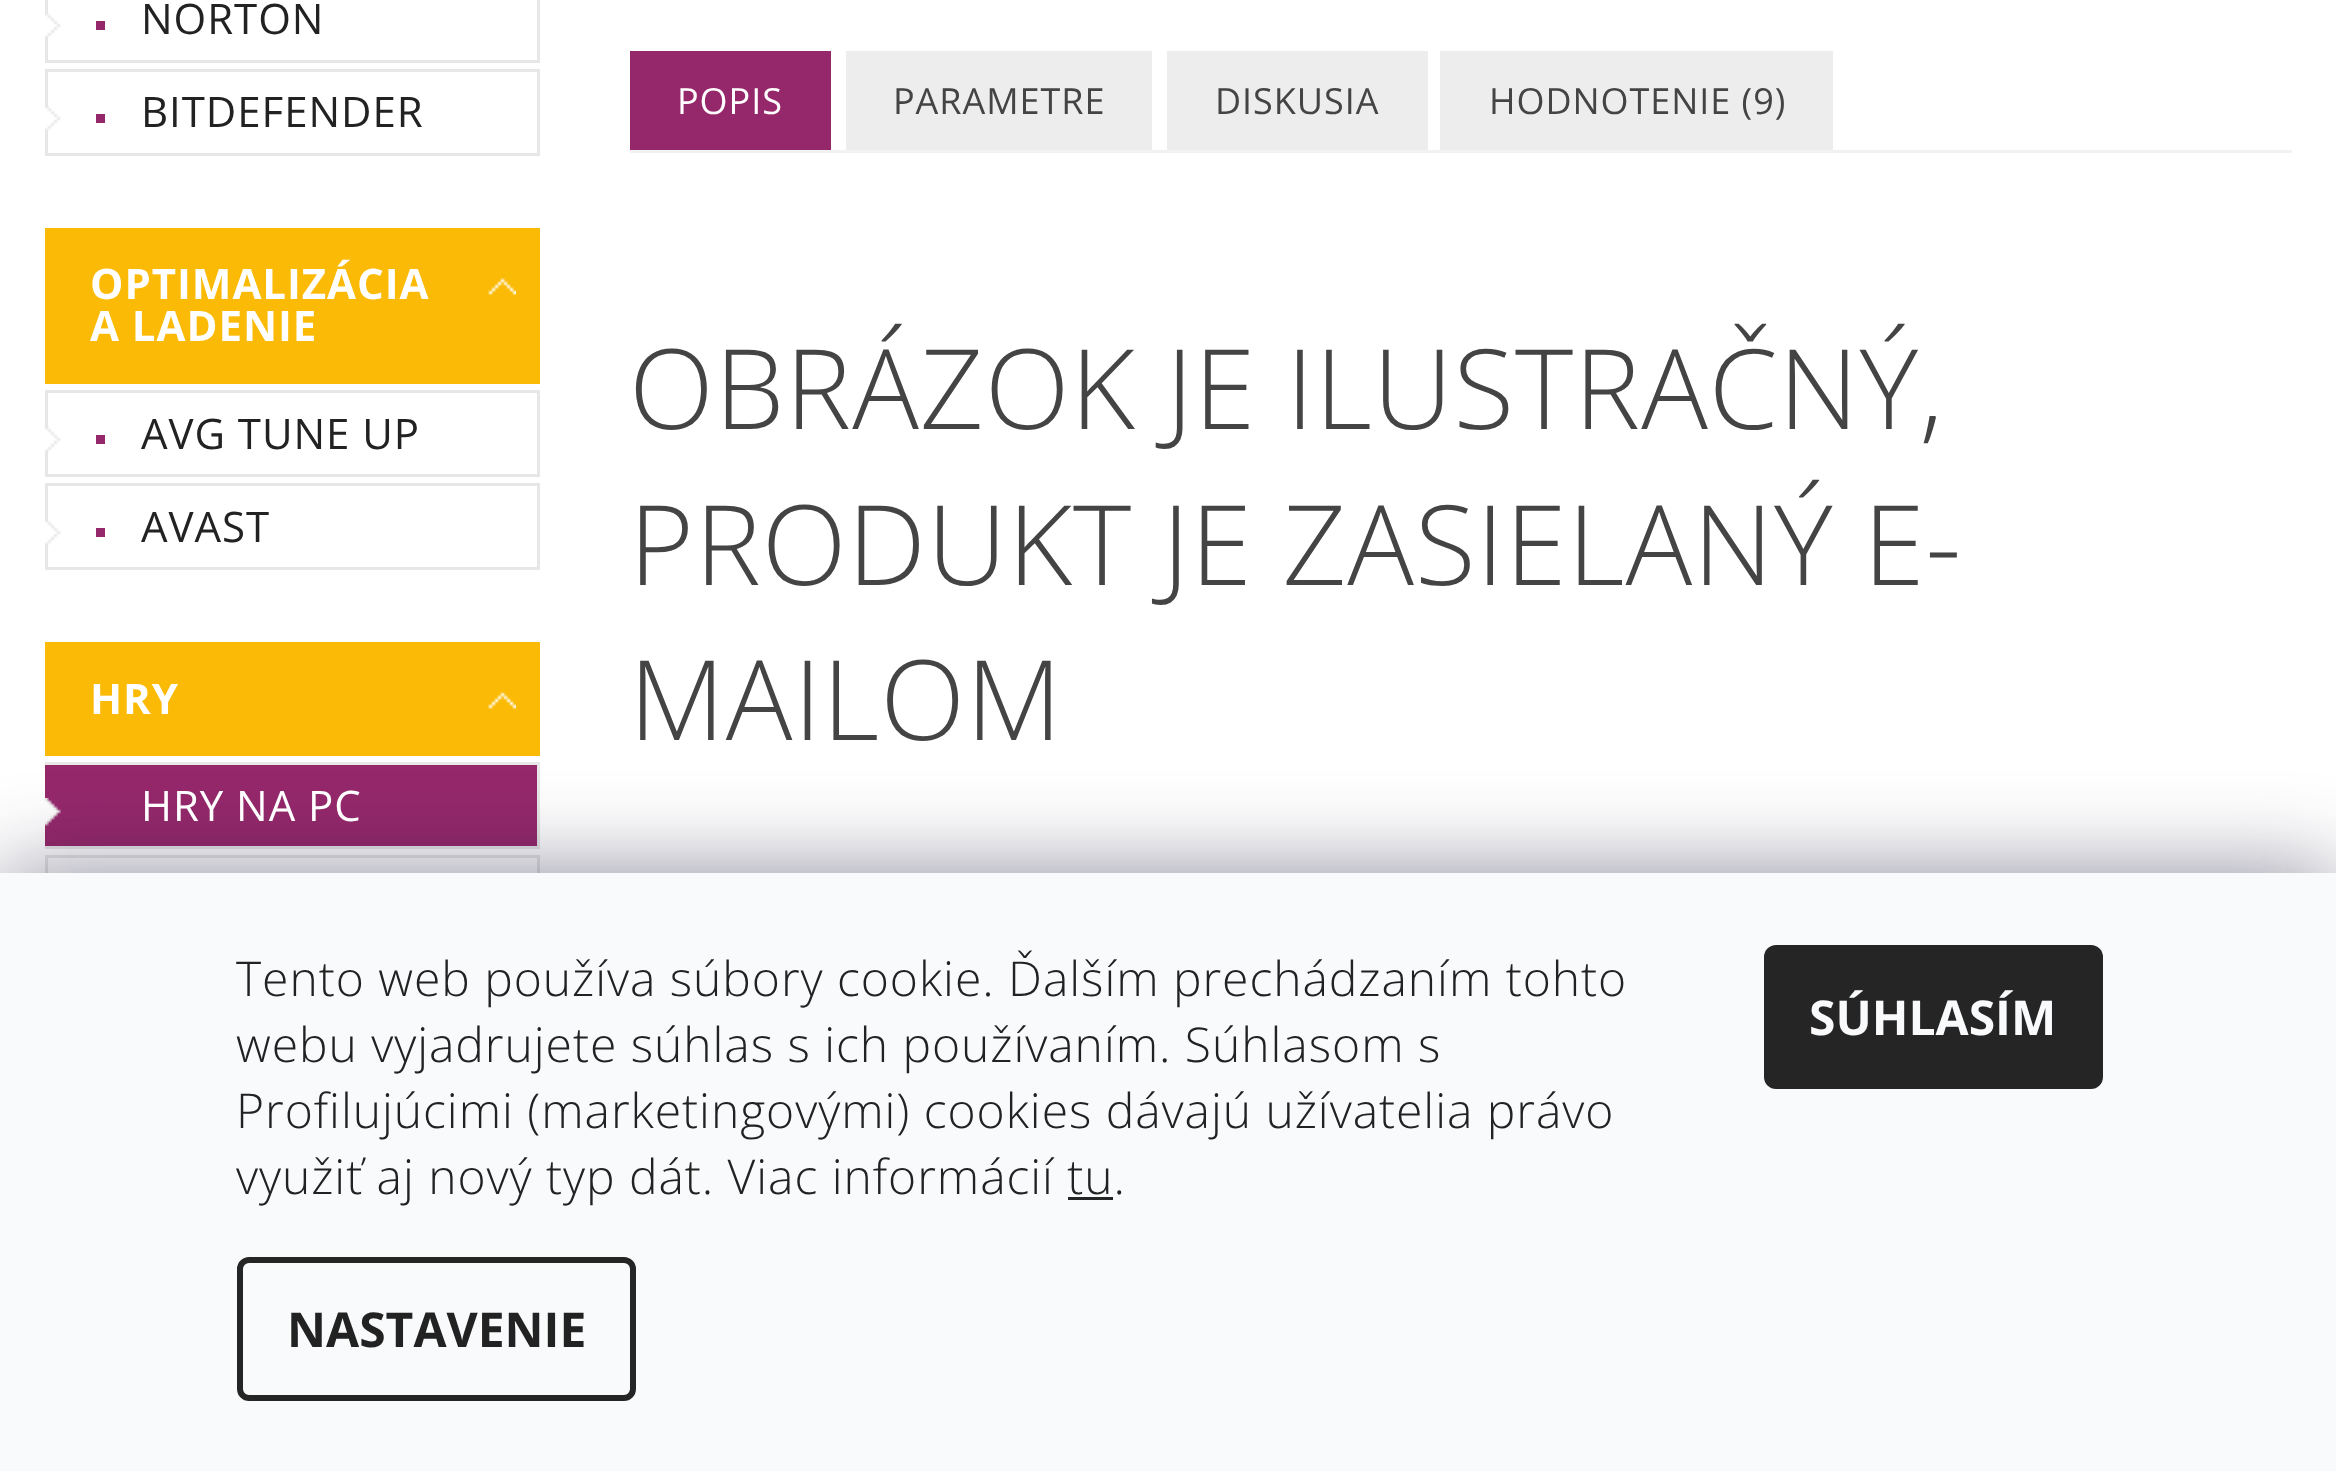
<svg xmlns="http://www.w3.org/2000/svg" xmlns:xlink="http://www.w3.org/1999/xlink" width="2336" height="1471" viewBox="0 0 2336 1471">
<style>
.cls-1{font:42px Open Sans;letter-spacing:0.95px;fill:#222222}
.cls-2{font:bold 42px Open Sans;letter-spacing:0.95px;fill:#ffffff}
.cls-3{font:42px Open Sans;letter-spacing:0.95px;fill:#ffffff}
.cls-4{font:36px Open Sans;letter-spacing:0.95px;fill:#ffffff}
.cls-5{font:36px Open Sans;letter-spacing:0.95px;fill:#444444}
.cls-6{font:300 111px Open Sans;letter-spacing:0.95px;fill:#444444}
.cls-7{font:300 48px Open Sans;letter-spacing:0.95px;fill:#222222}
.cls-8{font:bold 48px Open Sans;fill:#222222}
.cls-9{font:bold 48px Open Sans;fill:#f8fafb}
</style>
<rect width="100%" height="100%" fill="#ffffff"/>
<rect fill="none" stroke="#e7e7e7" stroke-width="3" x="46.5" y="-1.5" width="492" height="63"/>
<image xlink:href="image0.png" x="45" y="12" width="16" height="27"/>
<rect fill="#95286b" x="96" y="21" width="9" height="9"/>
<rect fill="none" stroke="#e7e7e7" stroke-width="3" x="46.5" y="70.5" width="492" height="84"/>
<image xlink:href="image0.png" x="45" y="105" width="16" height="27"/>
<rect fill="#95286b" x="96" y="114" width="9" height="9"/>
<rect fill="#fbba06" x="45" y="228" width="495" height="156"/>
<image xlink:href="image1.png" x="488" y="278" width="28" height="17"/>
<rect fill="none" stroke="#e7e7e7" stroke-width="3" x="46.5" y="391.5" width="492" height="84"/>
<image xlink:href="image0.png" x="45" y="426" width="16" height="27"/>
<rect fill="#95286b" x="96" y="435" width="9" height="9"/>
<rect fill="none" stroke="#e7e7e7" stroke-width="3" x="46.5" y="484.5" width="492" height="84"/>
<image xlink:href="image0.png" x="45" y="519" width="16" height="27"/>
<rect fill="#95286b" x="96" y="528" width="9" height="9"/>
<rect fill="#fbba06" x="45" y="642" width="495" height="114"/>
<image xlink:href="image1.png" x="488" y="692" width="28" height="17"/>
<rect fill="none" stroke="#e7e7e7" stroke-width="3" x="46.5" y="763.5" width="492" height="84"/>
<rect fill="#95286b" x="45" y="765" width="492" height="81"/>
<image xlink:href="image2.png" x="45" y="798" width="16" height="28"/>
<rect fill="none" stroke="#e7e7e7" stroke-width="3" x="46.5" y="856.5" width="492" height="84"/>
<rect fill="#f2f2f2" x="630" y="150" width="1662" height="3"/>
<rect fill="#95286b" x="630" y="51" width="201" height="99"/>
<rect fill="#ededed" x="846" y="51" width="306" height="99"/>
<rect fill="#ededed" x="1167" y="51" width="261" height="99"/>
<rect fill="#ededed" x="1440" y="51" width="393" height="99"/>
<rect fill="#1b1939" fill-opacity="0.5" filter="blur(45px)" x="0" y="873" width="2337" height="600"/>
<rect fill="#f8fafb" x="0" y="873" width="2336" height="598"/>
<rect fill="none" stroke="#252525" stroke-width="6" x="240" y="1260" width="393" height="138" rx="9"/>
<rect fill="#252525" x="1764" y="945" width="339" height="144" rx="12"/>
<text class="cls-1" x="141" y="34">NORTON</text>
<text class="cls-1" x="141" y="127">BITDEFENDER</text>
<text class="cls-2"><tspan x="90" y="299">OPTIMALIZÁCIA</tspan><tspan x="90" y="341">A LADENIE</tspan></text>
<text class="cls-1" x="141" y="449">AVG TUNE UP</text>
<text class="cls-1" x="141" y="542">AVAST</text>
<text class="cls-2" x="90" y="714">HRY</text>
<text class="cls-3" x="141" y="821">HRY NA PC</text>
<text class="cls-4" x="677" y="114">POPIS</text>
<text class="cls-5" x="893" y="114">PARAMETRE</text>
<text class="cls-5" x="1215" y="114">DISKUSIA</text>
<text class="cls-5" x="1489" y="114">HODNOTENIE (9)</text>
<text class="cls-6"><tspan x="629" y="429">OBRÁZOK JE ILUSTRAČNÝ,</tspan><tspan x="629" y="585">PRODUKT JE ZASIELANÝ E-</tspan><tspan x="629" y="740">MAILOM</tspan></text>
<text class="cls-7"><tspan x="236" y="996">Tento web používa súbory cookie. Ďalším prechádzaním tohto</tspan><tspan x="236" y="1062">webu vyjadrujete súhlas s ich používaním. Súhlasom s</tspan><tspan x="236" y="1128">Profilujúcimi (marketingovými) cookies dávajú užívatelia právo</tspan><tspan x="236" y="1194">využiť aj nový typ dát. Viac informácií tu.</tspan></text>
<rect fill="#252525" x="1068" y="1197" width="45" height="3"/>
<text class="cls-8" x="287" y="1347">NASTAVENIE</text>
<text class="cls-9" x="1809" y="1035">SÚHLASÍM</text>
</svg>
